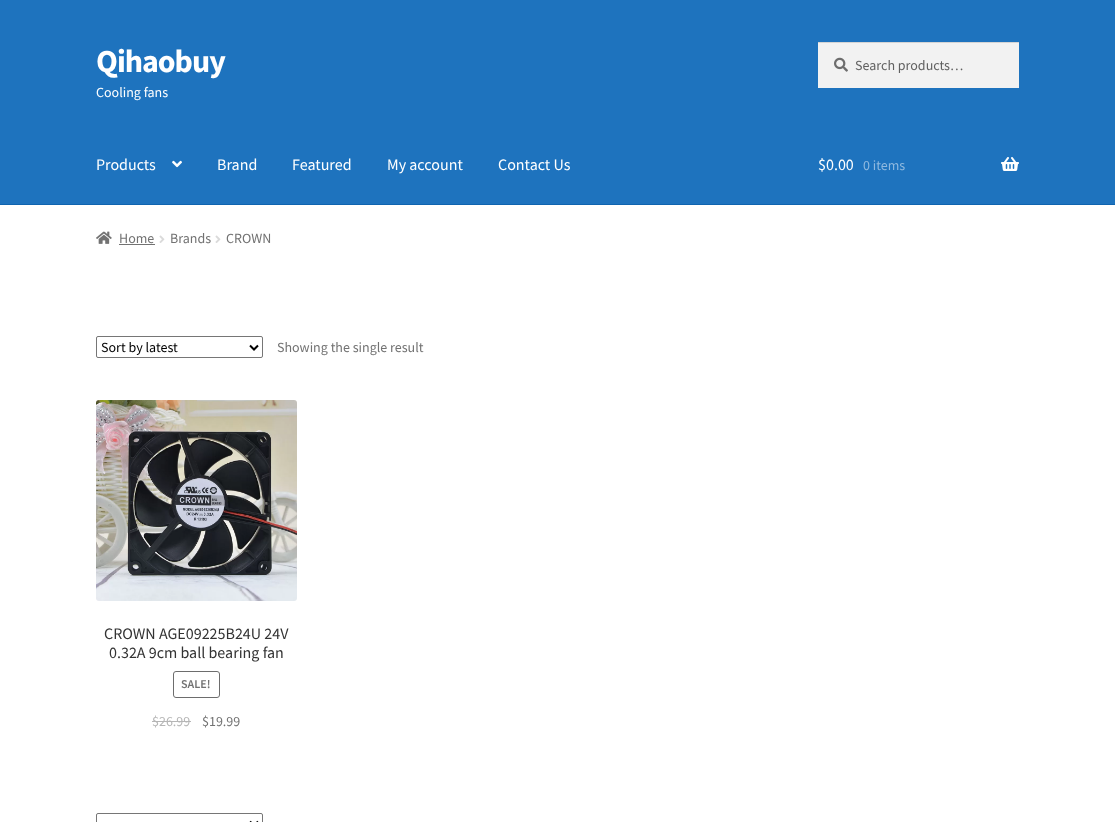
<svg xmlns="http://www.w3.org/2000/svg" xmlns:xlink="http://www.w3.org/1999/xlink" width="1115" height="822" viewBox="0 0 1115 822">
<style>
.cls-1{font:bold 32px Source Sans Pro;letter-spacing:-1px;fill:#ffffff}
.cls-2{font:14px Source Sans Pro;fill:#ffffff}
.cls-3{font:14px Source Sans Pro;fill:#616161}
.cls-4{font:16px Source Sans Pro;fill:#ffffff}
.cls-5{font:14px Source Sans Pro;fill:#8fb9df}
.cls-6{font:14px Source Sans Pro;fill:#727272}
.cls-7{font:14px Source Sans Pro;fill:#000000}
.cls-8{font:16px Source Sans Pro;fill:#333333}
.cls-9{font:600 12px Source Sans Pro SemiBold;fill:#727272}
.cls-10{font:14px Source Sans Pro;fill:#b6b6b6}
</style>
<rect width="100%" height="100%" fill="#ffffff"/>
<rect fill="#1e73be" x="0" y="0" width="1115" height="204"/>
<rect fill="#0f64af" x="0" y="204" width="1115" height="1"/>
<rect fill="#f2f2f2" x="818" y="43" width="201" height="45"/>
<image xlink:href="image0.png" x="834" y="57" width="14" height="15"/>
<rect fill="#d4d4d4" x="818" y="42" width="201" height="1"/>
<image xlink:href="image1.png" x="172" y="160" width="10" height="8"/>
<image xlink:href="image2.png" x="1001" y="157" width="18" height="14"/>
<image xlink:href="image3.png" x="96" y="231" width="16" height="13"/>
<rect fill="#727272" x="119" y="244" width="36" height="1"/>
<image xlink:href="image4.png" x="159" y="235" width="6" height="8"/>
<image xlink:href="image4.png" x="215" y="235" width="6" height="8"/>
<rect fill="none" stroke="#767676" x="96.5" y="336.5" width="166" height="21" rx="1.5"/>
<path fill="none" stroke="#000000" stroke-width="2" d="M250 345.5L254 349.5L258 345.5"/>
<image xlink:href="image5.png" x="96" y="400" width="201" height="201"/>
<rect fill="none" stroke="#6d6d6d" x="173.5" y="671.5" width="46" height="26" rx="2.5"/>
<rect fill="#b6b6b6" x="152" y="721" width="39" height="1"/>
<rect fill="none" stroke="#767676" x="96.5" y="813.5" width="166" height="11" rx="1.5"/>
<path fill="none" stroke="#000000" stroke-width="2" d="M250 821.5L254 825.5L258 821.5"/>
<text class="cls-1" x="96" y="72">Qihaobuy</text>
<text class="cls-2" x="96" y="97">Cooling fans</text>
<text class="cls-3" x="855" y="70">Search products…</text>
<text class="cls-4" x="96" y="170">Products</text>
<text class="cls-4" x="217" y="170">Brand</text>
<text class="cls-4" x="292" y="170">Featured</text>
<text class="cls-4" x="387" y="170">My account</text>
<text class="cls-4" x="498" y="170">Contact Us</text>
<text class="cls-4" x="818" y="170">$0.00</text>
<text class="cls-5" x="863" y="170">0 items</text>
<text class="cls-6" x="119" y="243">Home</text>
<text class="cls-6" x="170" y="243">Brands</text>
<text class="cls-6" x="226" y="243">CROWN</text>
<text class="cls-7" x="101" y="352">Sort by latest</text>
<text class="cls-6" x="277" y="352">Showing the single result</text>
<text class="cls-8" x="104" y="639">CROWN AGE09225B24U 24V</text>
<text class="cls-8" x="109" y="658">0.32A 9cm ball bearing fan</text>
<text class="cls-9" x="181" y="688">SALE!</text>
<text class="cls-10" x="152" y="726">$26.99</text>
<text class="cls-6" x="202" y="726">$19.99</text>
</svg>
